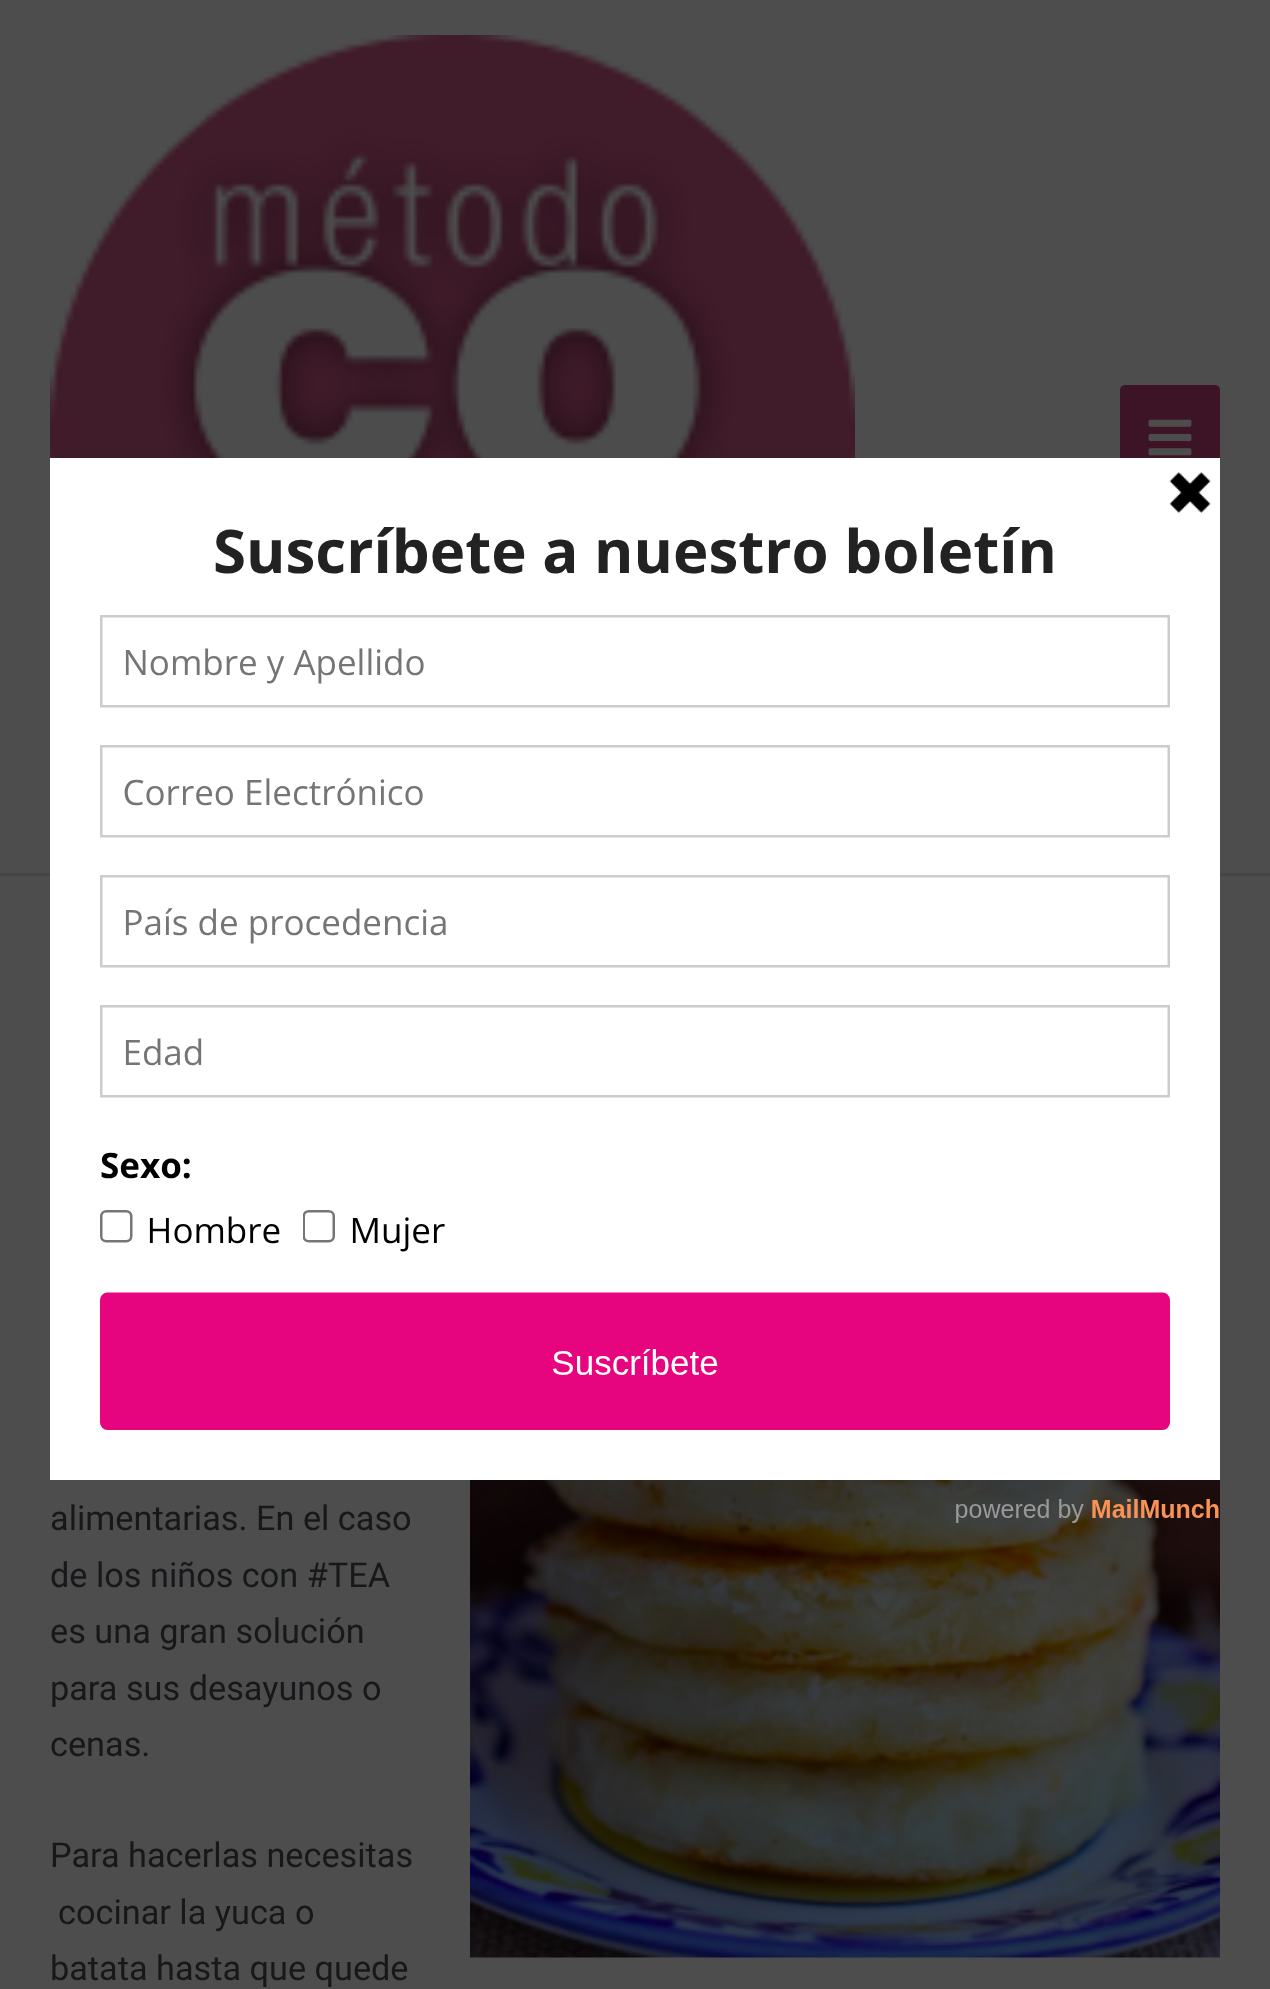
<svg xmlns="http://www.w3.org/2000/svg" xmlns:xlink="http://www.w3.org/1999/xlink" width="1270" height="1989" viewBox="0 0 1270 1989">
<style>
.cls-1{font:34.25px Roboto;fill:#17181a}
</style>
<rect width="100%" height="100%" fill="#4d4d4d"/>
<rect fill="#454545" x="0" y="873" width="1270" height="3"/>
<image xlink:href="image1.png" x="50" y="35" width="805" height="423"/>
<rect fill="#3d1425" x="1120" y="385" width="100" height="103" rx="5"/>
<image xlink:href="image2.png" x="1148" y="419" width="44" height="37"/>
<image xlink:href="image3.png" x="470" y="1480" width="750" height="478"/>
<text class="cls-1" x="50" y="1530">alimentarias. En el caso</text>
<image xlink:href="image0.png" x="50" y="458" width="1170" height="1065"/>
<text class="cls-1"><tspan x="50" y="1587">de los niños con #TEA</tspan><tspan x="50" y="1643">es una gran solución</tspan><tspan x="50" y="1700">para sus desayunos o</tspan><tspan x="50" y="1756">cenas.</tspan></text>
<text class="cls-1" x="50" y="1867">Para hacerlas necesitas</text>
<text class="cls-1" x="58" y="1924">cocinar la yuca o</text>
<text class="cls-1" x="50" y="1980">batata hasta que quede</text>
</svg>
